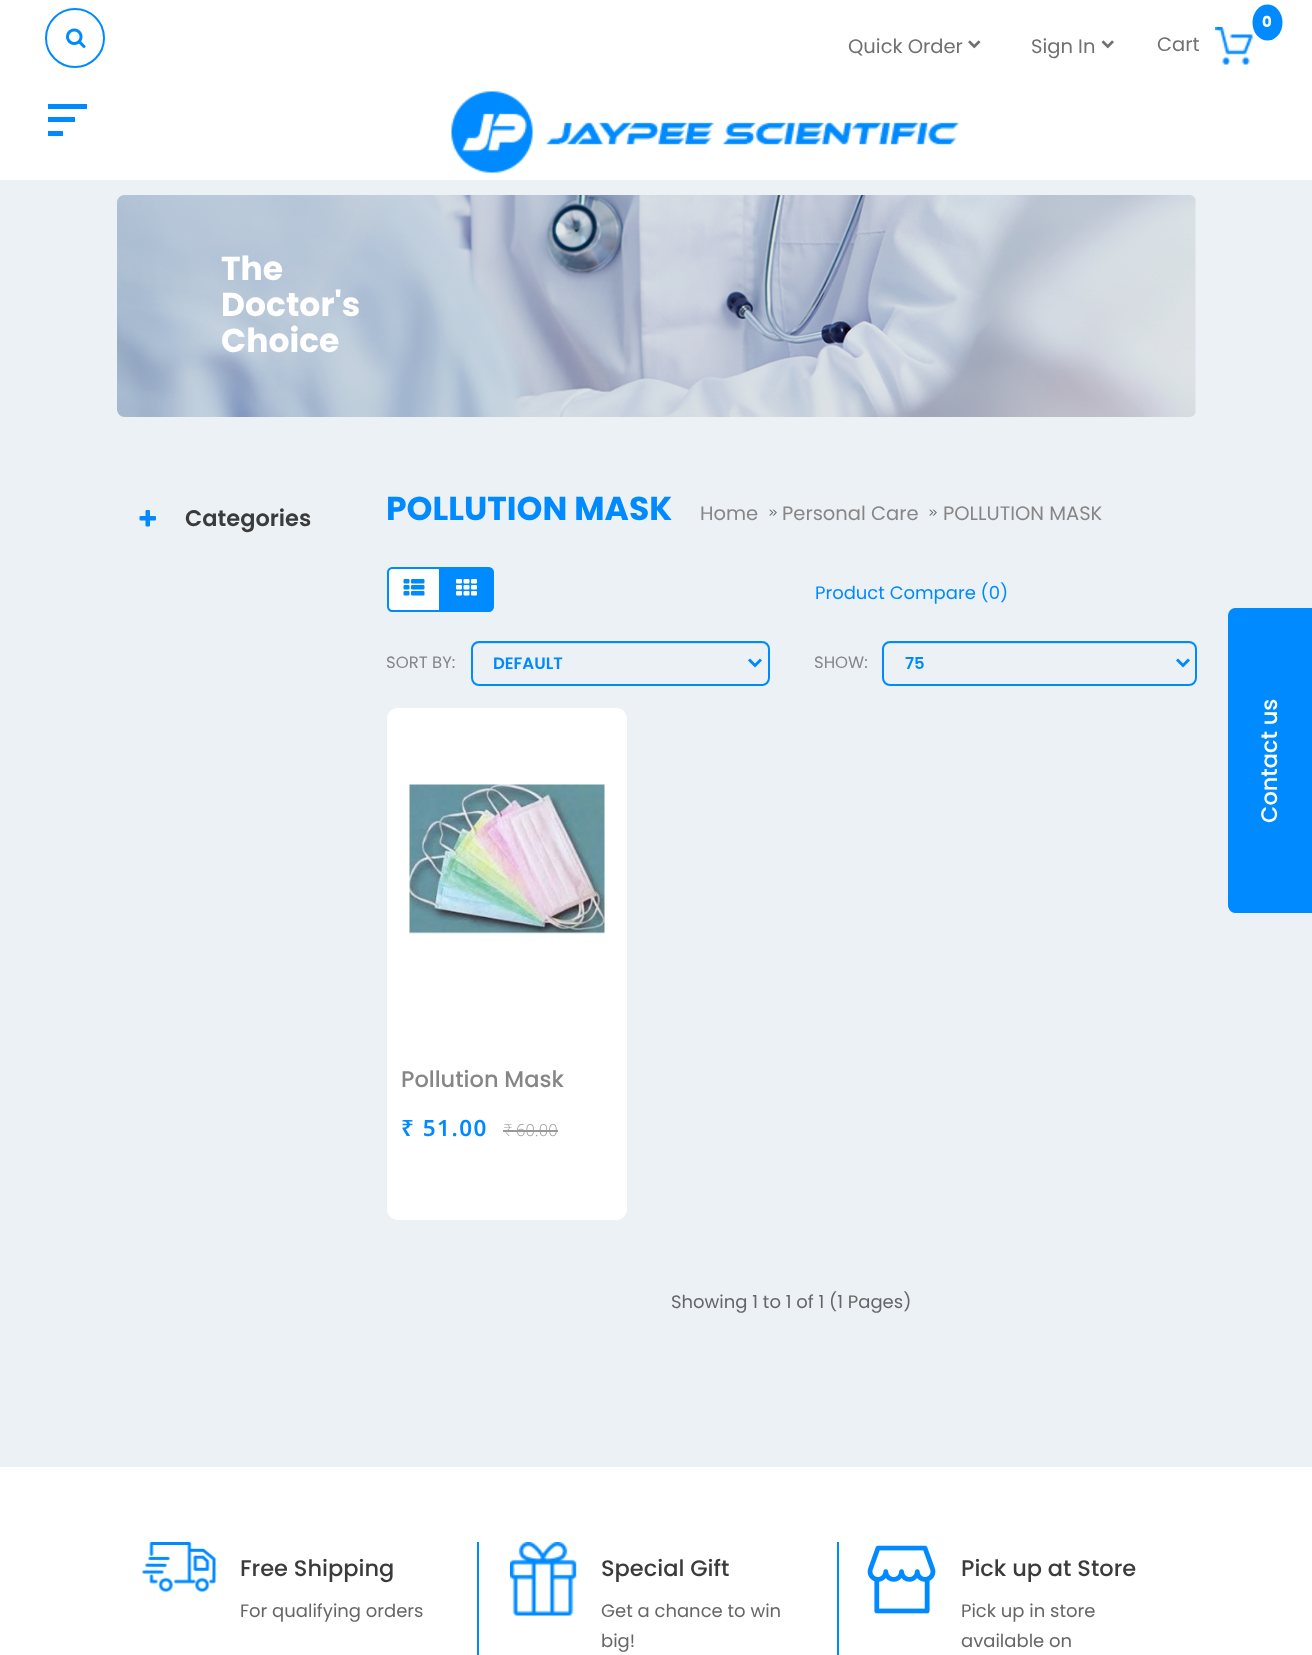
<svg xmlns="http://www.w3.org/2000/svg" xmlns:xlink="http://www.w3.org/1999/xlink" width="1312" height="1655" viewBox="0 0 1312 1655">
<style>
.cls-1{font:19.5px Poppins;fill:#707070}
.cls-2{font:bold 15px Poppins;fill:#ffffff}
.cls-3{font:bold 33px Poppins;fill:#ffffff}
.cls-4{font:600 22.5px Poppins;fill:#3b3b3b}
.cls-5{font:bold 33px Poppins;fill:#008aff}
.cls-6{font:19.5px Poppins;fill:#868686}
.cls-7{font:12px Poppins;letter-spacing:-3px;fill:#666666}
.cls-8{font:18px Poppins;fill:#008aff}
.cls-9{font:16.5px Poppins;fill:#868686}
.cls-10{font:600 16.5px Poppins;fill:#008aff}
.cls-11{font:500 22.5px Poppins;fill:#868686}
.cls-12{font:600 22.5px Noto Sans;letter-spacing:1.5px;fill:#008aff}
.cls-13{font:200 16.5px Noto Sans;fill:#999999}
.cls-14{font:300 16.5px Open Sans;fill:#999999}
.cls-15{font:18px Poppins;fill:#666666}
.cls-16{font:500 22.5px Poppins;fill:#3b3b3b}
.cls-17{font:500 22.5px Poppins;fill:#ffffff}
</style>
<rect width="100%" height="100%" fill="#ffffff"/>
<circle fill="none" stroke="#008aff" stroke-width="2" cx="75" cy="38" r="29"/>
<image xlink:href="image0.png" x="66" y="28" width="20" height="20"/>
<image xlink:href="image1.png" x="968" y="40" width="13" height="9"/>
<image xlink:href="image2.png" x="1101" y="40" width="13" height="9"/>
<image xlink:href="image3.png" x="1215" y="27" width="38" height="38"/>
<ellipse fill="#008aff" cx="1267.5" cy="22.5" rx="15" ry="18"/>
<image xlink:href="image4.png" x="451" y="91" width="508" height="82"/>
<rect fill="#008aff" x="48" y="104" width="39" height="5"/>
<rect fill="#008aff" x="48" y="117" width="27" height="5"/>
<rect fill="#008aff" x="48" y="131" width="15" height="5"/>
<rect fill="#ecf1f6" x="0" y="180" width="1312" height="1287"/>
<image xlink:href="image5.png" x="117" y="195" width="1079" height="222"/>
<image xlink:href="image6.png" x="139" y="510" width="17" height="17"/>
<path fill="#ffffff" stroke="#008aff" stroke-width="2" d="M392 568H440V611H392C390 611 388 609 388 607V572C388 570 390 568 392 568Z"/>
<image xlink:href="image7.png" x="403" y="579" width="22" height="17"/>
<path fill="#008aff" stroke="#008aff" stroke-width="2" d="M441 568H489C491 568 493 570 493 572V607C493 609 491 611 489 611H441Z"/>
<image xlink:href="image8.png" x="456" y="579" width="21" height="17"/>
<path fill="#dadfe4" d="M478 644H762C765 644 768 646 768 650V648C768 645 765 642 762 642H479C476 642 474 644 473 646C474 645 476 644 478 644Z"/>
<rect fill="none" stroke="#008aff" stroke-width="2" x="472" y="642" width="297" height="43" rx="7"/>
<path fill="none" stroke="#008aff" stroke-width="3" d="M749 659.5L755 665.5L761 659.5"/>
<path fill="#dadfe4" d="M890 644H1190C1193 644 1196 646 1196 650C1196 646 1195 642 1190 642H889C885 643 884 647 884 650C884 646 886 644 890 644Z"/>
<rect fill="none" stroke="#008aff" stroke-width="2" x="883" y="642" width="313" height="43" rx="7"/>
<path fill="none" stroke="#008aff" stroke-width="3" d="M1177 659.5L1183 665.5L1189 659.5"/>
<rect fill="#ffffff" x="387" y="708" width="240" height="512" rx="11"/>
<image xlink:href="image9.png" x="409" y="784" width="196" height="151"/>
<rect fill="#999999" x="503" y="1130" width="55" height="2"/>
<image xlink:href="image10.png" x="142" y="1542" width="74" height="50"/>
<rect fill="#008aff" x="477" y="1542" width="2" height="113"/>
<image xlink:href="image11.png" x="510" y="1542" width="67" height="74"/>
<rect fill="#008aff" x="837" y="1542" width="2" height="113"/>
<image xlink:href="image12.png" x="867" y="1545" width="69" height="69"/>
<path fill="#008aff" d="M1228 905V616C1228 612 1231 608 1235 608H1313V913H1235C1231 913 1228 909 1228 905Z"/>
<text class="cls-1" x="848" y="53">Quick Order</text>
<text class="cls-1" x="1031" y="53">Sign In</text>
<text class="cls-2" x="1262" y="27">0</text>
<text class="cls-1" x="1157" y="51">Cart</text>
<text class="cls-3"><tspan x="221" y="280">The</tspan><tspan x="221" y="316">Doctor's</tspan><tspan x="221" y="352">Choice</tspan></text>
<text class="cls-4" x="185" y="526">Categories</text>
<text class="cls-5" x="386" y="520">POLLUTION MASK</text>
<text class="cls-6" x="700" y="520">Home</text>
<text class="cls-7" x="768" y="517">&gt;&gt;</text>
<text class="cls-6" x="782" y="520">Personal Care</text>
<text class="cls-7" x="928" y="517">&gt;&gt;</text>
<text class="cls-6" x="943" y="520">POLLUTION MASK</text>
<text class="cls-8" x="815" y="599">Product Compare (0)</text>
<text class="cls-9" x="386" y="668">SORT BY:</text>
<text class="cls-10" x="493" y="669">DEFAULT</text>
<text class="cls-9" x="814" y="668">SHOW:</text>
<text class="cls-10" x="905" y="669">75</text>
<text class="cls-11" x="401" y="1087">Pollution Mask</text>
<text class="cls-12" x="401" y="1136">₹ 51.00</text>
<text class="cls-13" x="503" y="1136">₹</text>
<text class="cls-14" x="516" y="1136">60.00</text>
<text class="cls-15" x="671" y="1308">Showing 1 to 1 of 1 (1 Pages)</text>
<text class="cls-16" x="240" y="1576">Free Shipping</text>
<text class="cls-15" x="240" y="1617">For qualifying orders</text>
<text class="cls-16" x="601" y="1576">Special Gift</text>
<text class="cls-15"><tspan x="601" y="1617">Get a chance to win</tspan><tspan x="601" y="1647">big!</tspan></text>
<text class="cls-16" x="961" y="1576">Pick up at Store</text>
<text class="cls-15"><tspan x="961" y="1617">Pick up in store</tspan><tspan x="961" y="1647">available on</tspan></text>
<text class="cls-17" x="1277" y="823" transform="rotate(-90 1277 823)">Contact us</text>
</svg>
